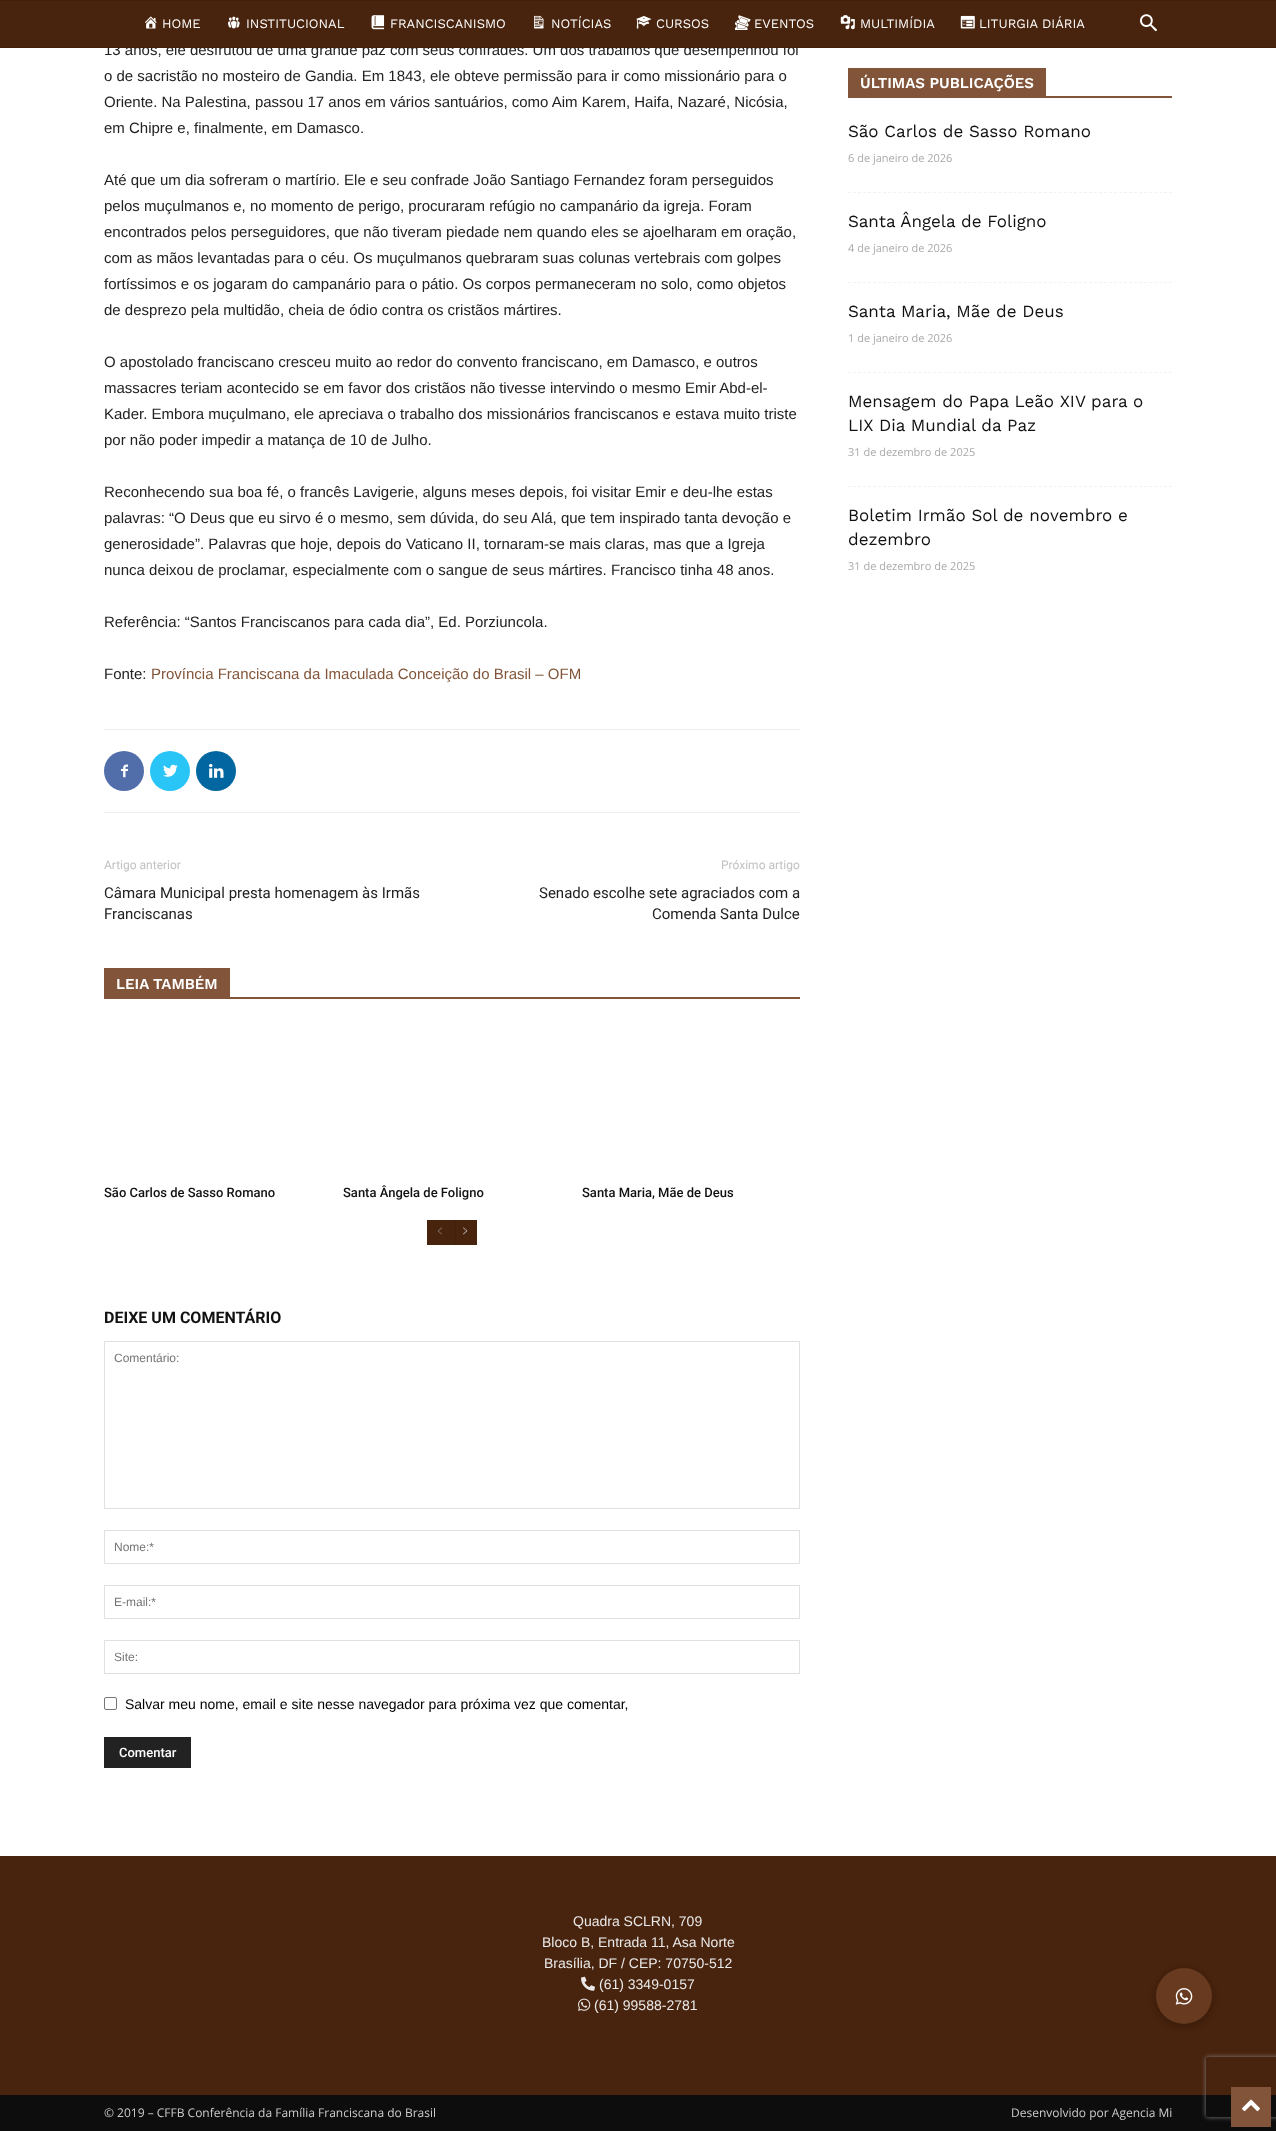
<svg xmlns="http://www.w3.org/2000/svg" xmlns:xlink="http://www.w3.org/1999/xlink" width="1276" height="2131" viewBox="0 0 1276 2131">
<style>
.cls-1{font:15px Liberation Sans;fill:#222222}
.cls-2{font:13px Work Sans;fill:#ffffff}
.cls-3{font:15px Liberation Sans;fill:#82553a}
.cls-4{font:12px Roboto;fill:#c1c1c1}
.cls-5{font:15px Roboto;fill:#222222}
.cls-6{font:600 15px Work Sans;fill:#ffffff}
.cls-7{font:500 13px Roboto;fill:#111111}
.cls-8{font:bold 16px Roboto;fill:#111111}
.cls-9{font:12px Liberation Sans;fill:#757575}
.cls-10{font:14px Liberation Sans;fill:#000000}
.cls-11{font:500 13px Roboto;fill:#ffffff}
.cls-12{font:17px Work Sans;fill:#111111}
.cls-13{font:11px Open Sans;fill:#aaaaaa}
.cls-14{font:14px Liberation Sans;fill:#eaeaea}
.cls-15{font:12px Open Sans;fill:#cccccc}
</style>
<defs>
<clipPath id="clip1"><path d="M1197 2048H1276V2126H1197ZM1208 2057H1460C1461 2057 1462 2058 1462 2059V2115C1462 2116 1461 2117 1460 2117H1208C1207 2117 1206 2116 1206 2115V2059C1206 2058 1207 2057 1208 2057Z" clip-rule="evenodd"/></clipPath>
</defs>
<rect width="100%" height="100%" fill="#ffffff"/>
<rect fill="#42200c" x="0" y="0" width="1276" height="1"/>
<rect fill="#ededed" x="104" y="729" width="696" height="1"/>
<rect fill="#ededed" x="104" y="812" width="696" height="1"/>
<circle fill="#516eab" cx="124" cy="771" r="20"/>
<image xlink:href="image9.png" x="121" y="764" width="7" height="14"/>
<circle fill="#29c5f6" cx="170" cy="771" r="20"/>
<image xlink:href="image10.png" x="163" y="764" width="15" height="13"/>
<circle fill="#0266a0" cx="216" cy="771" r="20"/>
<image xlink:href="image11.png" x="209" y="764" width="15" height="14"/>
<rect fill="#82553a" x="104" y="997" width="696" height="2"/>
<rect fill="#82553a" x="104" y="968" width="126" height="29"/>
<rect fill="#48230d" x="427" y="1220" width="50" height="25"/>
<image xlink:href="image12.png" x="437" y="1227" width="5" height="8"/>
<rect fill="#42200c" x="455" y="1220" width="1" height="25"/>
<image xlink:href="image13.png" x="463" y="1227" width="5" height="8"/>
<rect fill="none" stroke="#e1e1e1" x="104.5" y="1341.5" width="695" height="167"/>
<rect fill="none" stroke="#e1e1e1" x="104.5" y="1530.5" width="695" height="33"/>
<rect fill="none" stroke="#e1e1e1" x="104.5" y="1585.5" width="695" height="33"/>
<rect fill="none" stroke="#e1e1e1" x="104.5" y="1640.5" width="695" height="33"/>
<rect fill="none" stroke="#767676" x="104.5" y="1697.5" width="12" height="12" rx="1.5"/>
<rect fill="#222222" x="104" y="1737" width="87" height="31"/>
<rect fill="#82553a" x="848" y="96" width="324" height="2"/>
<rect fill="#82553a" x="848" y="68" width="198" height="28"/>
<path fill="none" stroke="#f2f2f2" stroke-dasharray="3 2.02" d="M848 192.5H1172"/>
<path fill="none" stroke="#f2f2f2" stroke-dasharray="3 2.02" d="M848 282.5H1172"/>
<path fill="none" stroke="#f2f2f2" stroke-dasharray="3 2.02" d="M848 372.5H1172"/>
<path fill="none" stroke="#f2f2f2" stroke-dasharray="3 2.02" d="M848 486.5H1172"/>
<rect fill="#48230d" x="0" y="1856" width="1276" height="239"/>
<image xlink:href="image14.png" x="581" y="1976" width="14" height="15"/>
<image xlink:href="image15.png" x="578" y="1998" width="13" height="13"/>
<rect fill="#0d0d0d" x="0" y="2095" width="1276" height="36"/>
<rect fill="#000000" fill-opacity="0.2" filter="blur(3px)" x="1155" y="1969" width="58" height="58" rx="29"/>
<circle fill="#683b20" cx="1184" cy="1996" r="28"/>
<image xlink:href="image16.png" x="1175" y="1988" width="18" height="17"/>
<g clip-path="url(#clip1)">
<rect fill="#808080" filter="blur(2.5px)" x="1206" y="2057" width="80" height="60" rx="2"/>
</g>
<rect fill="#82553a" x="1231" y="2087" width="40" height="40"/>
<image xlink:href="image17.png" x="1242" y="2099" width="18" height="13"/>
<text class="cls-1" x="104" y="55">13 anos, ele desfrutou de uma grande paz com seus confrades. Um dos trabalhos que desempenhou foi</text>
<rect fill="#48230d" x="0" y="1" width="1276" height="46"/>
<image xlink:href="image8.png" x="1140" y="14" width="17" height="18"/>
<text class="cls-2" x="979" y="28">LITURGIA DIÁRIA</text>
<image xlink:href="image7.png" x="960" y="15" width="15" height="14"/>
<text class="cls-2" x="860" y="28">MULTIMÍDIA</text>
<image xlink:href="image6.png" x="840" y="15" width="15" height="15"/>
<text class="cls-2" x="754" y="28">EVENTOS</text>
<image xlink:href="image5.png" x="735" y="15" width="16" height="15"/>
<text class="cls-2" x="656" y="28">CURSOS</text>
<image xlink:href="image4.png" x="636" y="16" width="16" height="13"/>
<text class="cls-2" x="551" y="28">NOTÍCIAS</text>
<image xlink:href="image3.png" x="534" y="15" width="10" height="14"/>
<text class="cls-2" x="390" y="28">FRANCISCANISMO</text>
<image xlink:href="image2.png" x="371" y="15" width="14" height="15"/>
<text class="cls-2" x="246" y="28">INSTITUCIONAL</text>
<image xlink:href="image1.png" x="228" y="16" width="12" height="13"/>
<text class="cls-2" x="162" y="28">HOME</text>
<image xlink:href="image0.png" x="145" y="16" width="12" height="13"/>
<rect fill="#42200c" x="0" y="47" width="1276" height="1"/>
<text class="cls-1"><tspan x="104" y="81">o de sacristão no mosteiro de Gandia. Em 1843, ele obteve permissão para ir como missionário para o</tspan><tspan x="104" y="107">Oriente. Na Palestina, passou 17 anos em vários santuários, como Aim Karem, Haifa, Nazaré, Nicósia,</tspan><tspan x="104" y="133">em Chipre e, finalmente, em Damasco.</tspan></text>
<text class="cls-1"><tspan x="104" y="185">Até que um dia sofreram o martírio. Ele e seu confrade João Santiago Fernandez foram perseguidos</tspan><tspan x="104" y="211">pelos muçulmanos e, no momento de perigo, procuraram refúgio no campanário da igreja. Foram</tspan><tspan x="104" y="237">encontrados pelos perseguidores, que não tiveram piedade nem quando eles se ajoelharam em oração,</tspan><tspan x="104" y="263">com as mãos levantadas para o céu. Os muçulmanos quebraram suas colunas vertebrais com golpes</tspan><tspan x="104" y="289">fortíssimos e os jogaram do campanário para o pátio. Os corpos permaneceram no solo, como objetos</tspan><tspan x="104" y="315">de desprezo pela multidão, cheia de ódio contra os cristãos mártires.</tspan></text>
<text class="cls-1"><tspan x="104" y="367">O apostolado franciscano cresceu muito ao redor do convento franciscano, em Damasco, e outros</tspan><tspan x="104" y="393">massacres teriam acontecido se em favor dos cristãos não tivesse intervindo o mesmo Emir Abd-el-</tspan><tspan x="104" y="419">Kader. Embora muçulmano, ele apreciava o trabalho dos missionários franciscanos e estava muito triste</tspan><tspan x="104" y="445">por não poder impedir a matança de 10 de Julho.</tspan></text>
<text class="cls-1"><tspan x="104" y="497">Reconhecendo sua boa fé, o francês Lavigerie, alguns meses depois, foi visitar Emir e deu-lhe estas</tspan><tspan x="104" y="523">palavras: “O Deus que eu sirvo é o mesmo, sem dúvida, do seu Alá, que tem inspirado tanta devoção e</tspan><tspan x="104" y="549">generosidade”. Palavras que hoje, depois do Vaticano II, tornaram-se mais claras, mas que a Igreja</tspan><tspan x="104" y="575">nunca deixou de proclamar, especialmente com o sangue de seus mártires. Francisco tinha 48 anos.</tspan></text>
<text class="cls-1" x="104" y="627">Referência: “Santos Franciscanos para cada dia”, Ed. Porziuncola.</text>
<text class="cls-1" x="104" y="679">Fonte:</text>
<text class="cls-3" x="151" y="679">Província Franciscana da Imaculada Conceição do Brasil – OFM</text>
<text class="cls-4" x="104" y="869">Artigo anterior</text>
<text class="cls-5"><tspan x="104" y="898">Câmara Municipal presta homenagem às Irmãs</tspan><tspan x="104" y="919">Franciscanas</tspan></text>
<text class="cls-4" x="721" y="869">Próximo artigo</text>
<text class="cls-5" x="539" y="898">Senado escolhe sete agraciados com a</text>
<text class="cls-5" x="652" y="919">Comenda Santa Dulce</text>
<text class="cls-6" x="116" y="989">LEIA TAMBÉM</text>
<text class="cls-7" x="104" y="1197">São Carlos de Sasso Romano</text>
<text class="cls-7" x="343" y="1197">Santa Ângela de Foligno</text>
<text class="cls-7" x="582" y="1197">Santa Maria, Mãe de Deus</text>
<text class="cls-8" x="104" y="1323">DEIXE UM COMENTÁRIO</text>
<text class="cls-9" x="114" y="1362">Comentário:</text>
<text class="cls-9" x="114" y="1551">Nome:*</text>
<text class="cls-9" x="114" y="1606">E-mail:*</text>
<text class="cls-9" x="114" y="1661">Site:</text>
<text class="cls-10" x="125" y="1709">Salvar meu nome, email e site nesse navegador para próxima vez que comentar,</text>
<text class="cls-11" x="119" y="1757">Comentar</text>
<text class="cls-6" x="860" y="88">ÚLTIMAS PUBLICAÇÕES</text>
<text class="cls-12" x="848" y="137">São Carlos de Sasso Romano</text>
<text class="cls-13" x="848" y="162">6 de janeiro de 2026</text>
<text class="cls-12" x="848" y="227">Santa Ângela de Foligno</text>
<text class="cls-13" x="848" y="252">4 de janeiro de 2026</text>
<text class="cls-12" x="848" y="317">Santa Maria, Mãe de Deus</text>
<text class="cls-13" x="848" y="342">1 de janeiro de 2026</text>
<text class="cls-12"><tspan x="848" y="407">Mensagem do Papa Leão XIV para o</tspan><tspan x="848" y="431">LIX Dia Mundial da Paz</tspan></text>
<text class="cls-13" x="848" y="456">31 de dezembro de 2025</text>
<text class="cls-12"><tspan x="848" y="521">Boletim Irmão Sol de novembro e</tspan><tspan x="848" y="545">dezembro</tspan></text>
<text class="cls-13" x="848" y="570">31 de dezembro de 2025</text>
<text class="cls-14" x="573" y="1926">Quadra SCLRN, 709</text>
<text class="cls-14" x="542" y="1947">Bloco B, Entrada 11, Asa Norte</text>
<text class="cls-14" x="544" y="1968">Brasília, DF / CEP: 70750-512</text>
<text class="cls-14" x="599" y="1989">(61) 3349-0157</text>
<text class="cls-14" x="594" y="2010">(61) 99588-2781</text>
<text class="cls-15" x="104" y="2117">© 2019 – CFFB Conferência da Família Franciscana do Brasil</text>
<text class="cls-15" x="1011" y="2117">Desenvolvido por Agencia Mi</text>
</svg>
